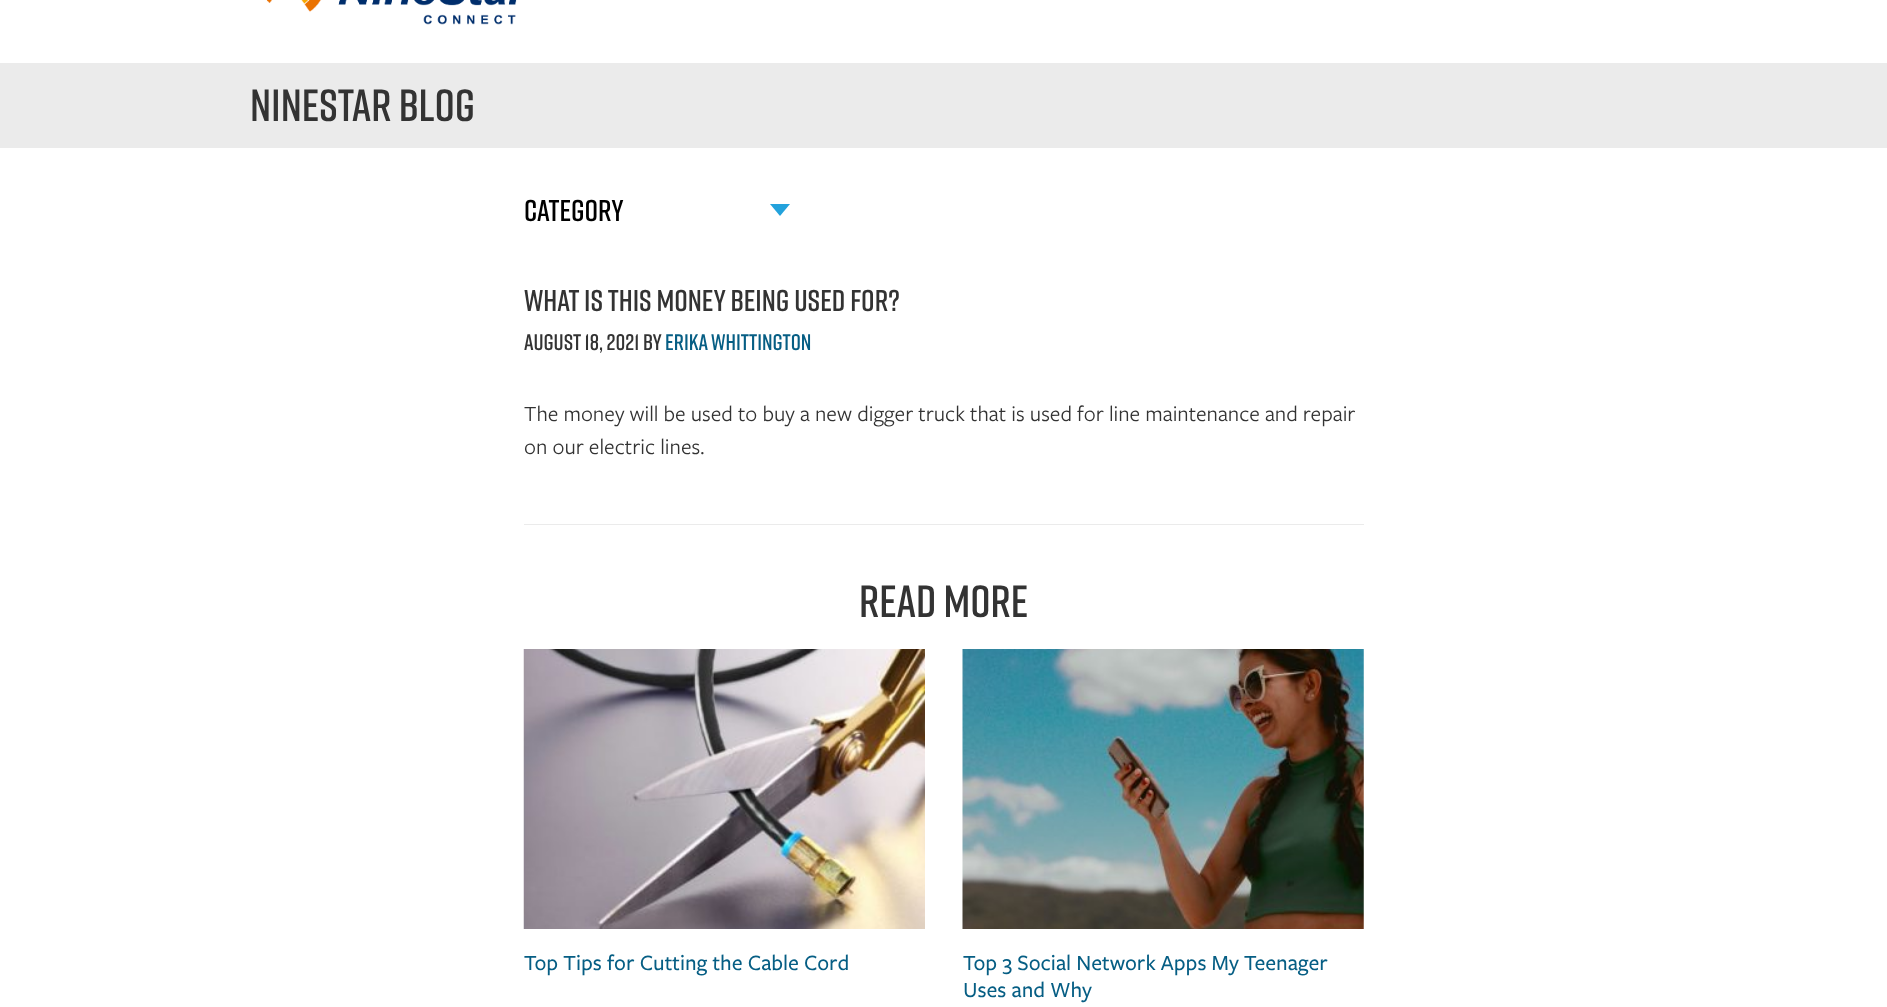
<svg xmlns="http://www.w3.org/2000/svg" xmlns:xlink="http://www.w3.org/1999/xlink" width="1887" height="1007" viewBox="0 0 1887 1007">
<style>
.cls-1{font:600 45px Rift;fill:#333333}
.cls-2{font:600 30px Rift;fill:#000000}
.cls-3{font:600 30px Rift;fill:#333333}
.cls-4{font:600 22.5px Rift;fill:#333333}
.cls-5{font:600 22.5px Rift;fill:#065e84}
.cls-6{font:22.5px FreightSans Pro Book;fill:#333333}
.cls-7{font:500 22.5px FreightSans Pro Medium;fill:#065e84}
</style>
<rect width="100%" height="100%" fill="#ffffff"/>
<rect fill="#ebebeb" x="0" y="63" width="1887" height="85"/>
<image xlink:href="image0.png" x="266" y="0" width="251" height="25"/>
<path fill="#23a2dc" fill-rule="evenodd" d="M780 216L770 204H790Z"/>
<rect fill="#ebebeb" x="524" y="524" width="840" height="1"/>
<image xlink:href="image1.png" x="523" y="649" width="402" height="280"/>
<image xlink:href="image2.png" x="962" y="649" width="402" height="280"/>
<text class="cls-1" x="250" y="121">NINESTAR BLOG</text>
<text class="cls-2" x="524" y="221">Category</text>
<text class="cls-3" x="524" y="311">What is this money being used for?</text>
<text class="cls-4" x="524" y="350">August 18, 2021 BY</text>
<text class="cls-5" x="665" y="350">Erika Whittington</text>
<text class="cls-6"><tspan x="524" y="421">The money will be used to buy a new digger truck that is used for line maintenance and repair</tspan><tspan x="524" y="454">on our electric lines.</tspan></text>
<text class="cls-1" x="859" y="617">READ MORE</text>
<text class="cls-7" x="524" y="970">Top Tips for Cutting the Cable Cord</text>
<text class="cls-7"><tspan x="963" y="970">Top 3 Social Network Apps My Teenager</tspan><tspan x="963" y="997">Uses and Why</tspan></text>
</svg>
